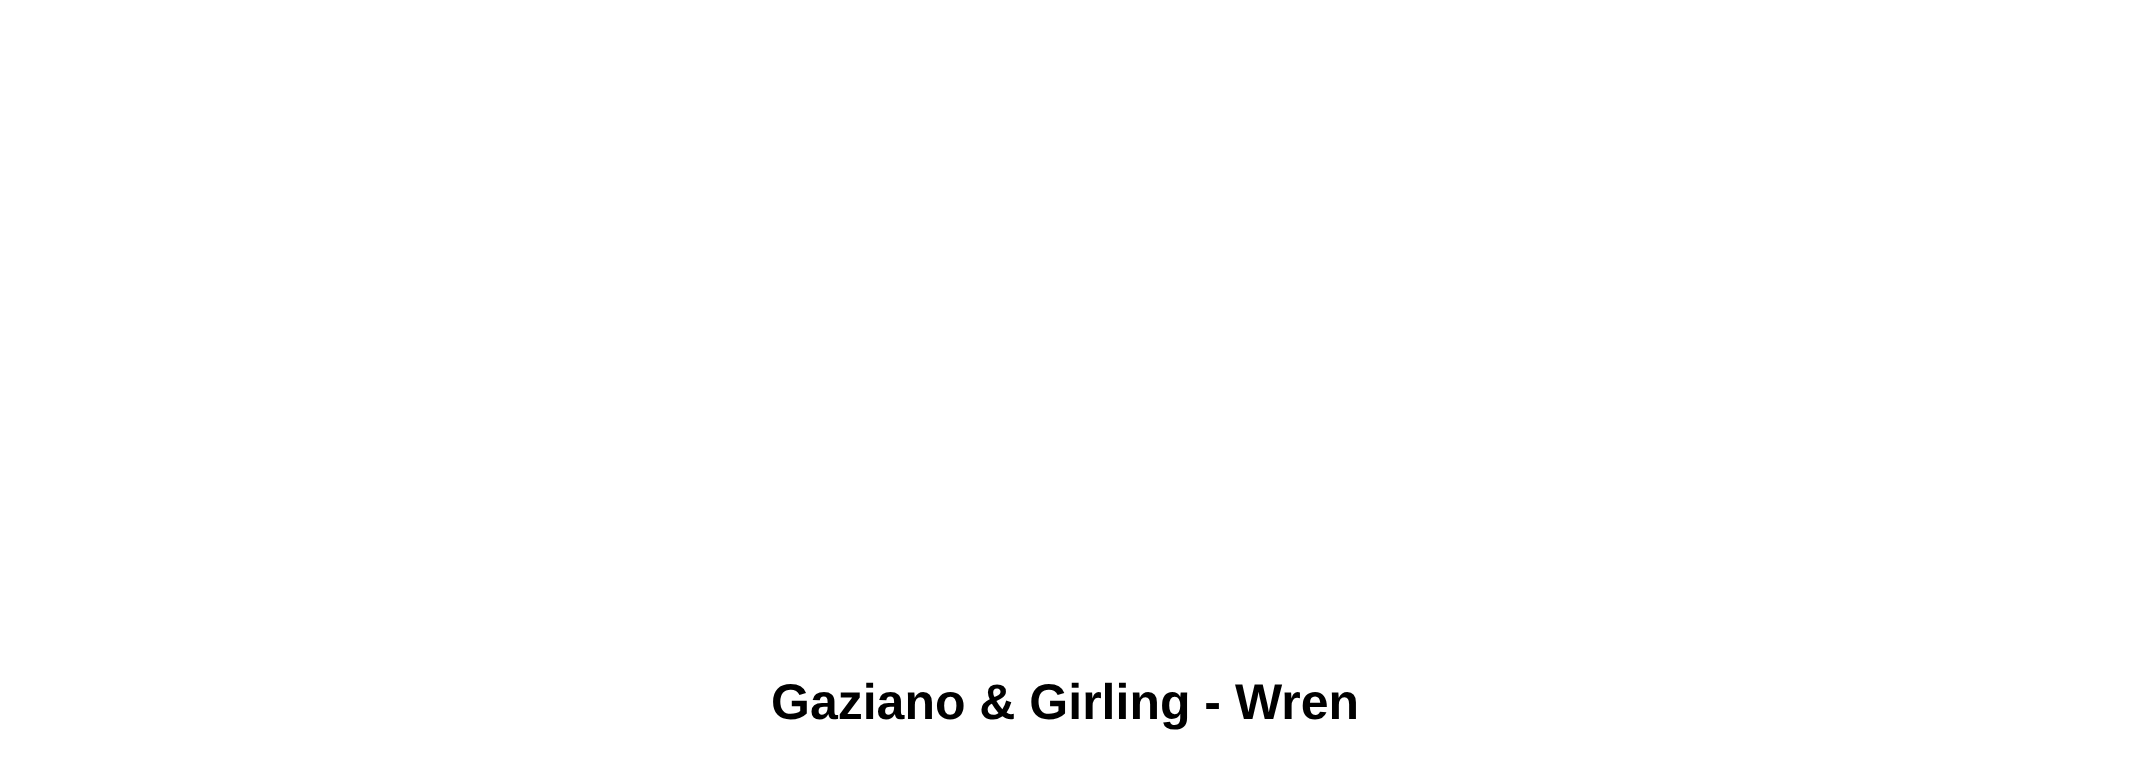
<svg xmlns="http://www.w3.org/2000/svg" xmlns:xlink="http://www.w3.org/1999/xlink" width="2129" height="757" viewBox="0 0 2129 757">
<style>
.cls-1{font:bold 50px Liberation Sans;fill:#000000}
</style>
<rect width="100%" height="100%" fill="#ffffff"/>
<text class="cls-1" x="771" y="719">Gaziano &amp; Girling - Wren</text>
</svg>
